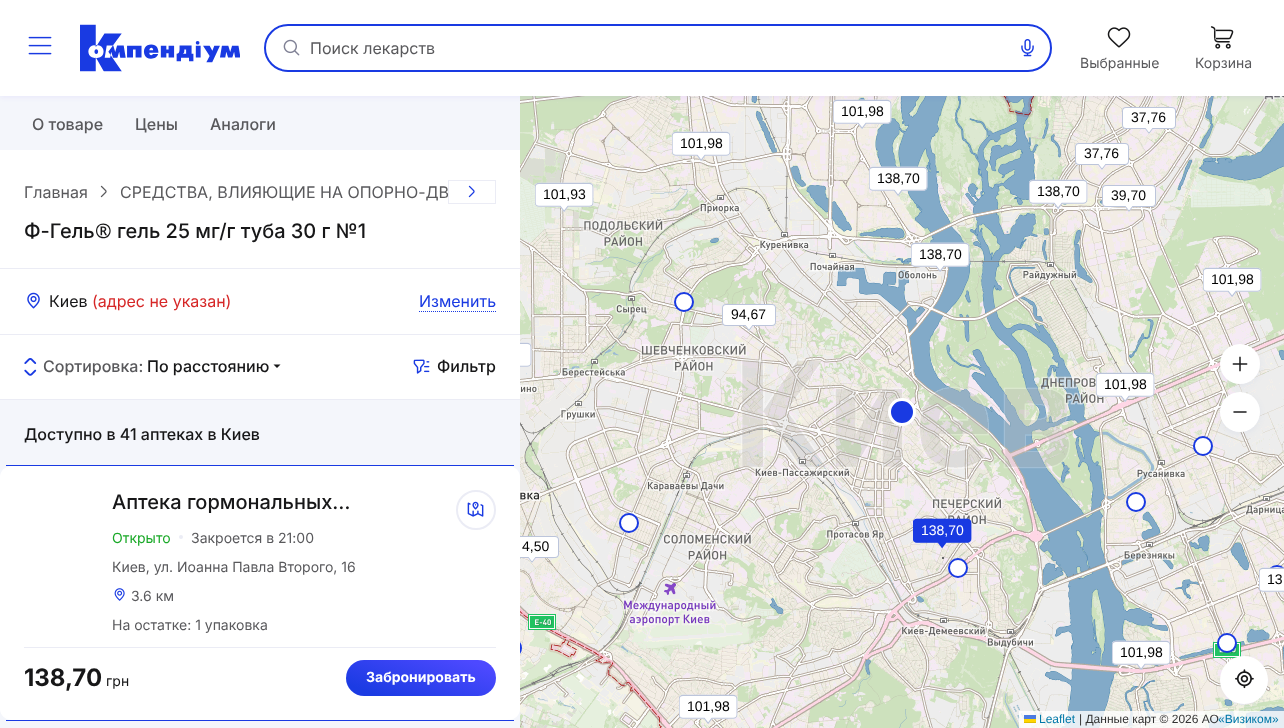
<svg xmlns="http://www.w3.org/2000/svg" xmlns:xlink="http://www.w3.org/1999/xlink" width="1284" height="728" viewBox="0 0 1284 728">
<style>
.cls-1{font:16px Inter;fill:#59595c}
.cls-2{font:14px Inter;fill:#59595c}
.cls-3{font:500 16px Inter;fill:#59595c}
.cls-4{font:500 20px Inter;fill:#171718}
.cls-5{font:500 20px Noto Sans;fill:#171718}
.cls-6{font:16px Inter;fill:#171718}
.cls-7{font:16px Inter;fill:#d62727}
.cls-8{font:16px Inter;fill:#193ae2}
.cls-9{font:500 16px Inter;fill:#171718}
.cls-10{font:14px Inter;fill:#1aa928}
.cls-11{font:bold 24px Inter;fill:#171718}
.cls-12{font:14px Inter;fill:#171718}
.cls-13{font:bold 14px Inter;fill:#ffffff}
.cls-14{font:14px Liberation Sans;fill:#000000}
.cls-15{font:14px Liberation Sans;fill:#ffffff}
.cls-16{font:12px Liberation Sans;fill:#0078a8}
.cls-17{font:12px Liberation Sans;fill:#333333}
</style>
<defs>
<linearGradient id="g1" gradientUnits="userSpaceOnUse" x1="407" y1="718" x2="435" y2="638"><stop offset="0.14" stop-color="#1b3be3"/><stop offset="0.88" stop-color="#4d49ff"/></linearGradient>
<clipPath id="clip1"><rect x="520" y="96" width="764" height="632"/></clipPath>
</defs>
<rect width="100%" height="100%" fill="#ffffff"/>
<rect fill="#f4f6fb" x="0" y="96" width="520" height="54"/>
<image xlink:href="image13.png" x="520" y="96" width="54" height="30"/>
<image xlink:href="image14.png" x="574" y="96" width="256" height="30"/>
<image xlink:href="image15.png" x="830" y="96" width="256" height="30"/>
<image xlink:href="image16.png" x="1086" y="96" width="198" height="30"/>
<image xlink:href="image19.png" x="830" y="126" width="256" height="256"/>
<image xlink:href="image29.png" x="833" y="99" width="59" height="30"/>
<rect fill="#4b0cff" fill-opacity="0.05" filter="blur(2px)" x="0" y="2" width="1284" height="96"/>
<rect fill="#ffffff" x="0" y="0" width="1284" height="96"/>
<image xlink:href="image0.png" x="28" y="36" width="24" height="19"/>
<image xlink:href="image1.png" x="80" y="24" width="160" height="48"/>
<rect fill="none" stroke="#193ae2" stroke-width="2" x="265" y="25" width="786" height="46" rx="23"/>
<image xlink:href="image2.png" x="283" y="39" width="17" height="17"/>
<image xlink:href="image3.png" x="1021" y="39" width="13" height="18"/>
<image xlink:href="image4.png" x="1107" y="27" width="24" height="21"/>
<image xlink:href="image5.png" x="1210" y="26" width="24" height="23"/>
<image xlink:href="image6.png" x="100" y="185" width="7" height="13"/>
<rect fill="none" stroke="#ebecf5" x="448.5" y="180.5" width="47" height="23"/>
<image xlink:href="image7.png" x="468" y="185" width="7" height="13"/>
<rect fill="#ebecf5" x="0" y="268" width="520" height="1"/>
<image xlink:href="image8.png" x="27" y="292" width="13" height="17"/>
<path fill="none" stroke="#193ae2" stroke-dasharray="1 1" d="M419 311.5H496"/>
<rect fill="#f4f6fb" x="0" y="400" width="520" height="328"/>
<rect fill="#ebecf5" x="0" y="334" width="520" height="1"/>
<rect fill="#ebecf5" x="0" y="399" width="520" height="1"/>
<image xlink:href="image9.png" x="24" y="358" width="13" height="18"/>
<path fill="#171718" d="M277 368L273.5 364.5H280.5Z"/>
<image xlink:href="image10.png" x="413" y="359" width="17" height="15"/>
<path fill="#ffffff" d="M12 466H508C515 466 520 471 520 477V709C520 715 515 720 508 720H12C5 720 0 715 0 709V477C0 471 5 466 12 466Z"/>
<rect fill="#193ae2" x="6" y="465" width="508" height="1"/>
<rect fill="#193ae2" x="6" y="720" width="508" height="1"/>
<rect fill="#ebecf5" x="24" y="647" width="472" height="1"/>
<circle fill="#ebecf5" cx="181" cy="537" r="2"/>
<image xlink:href="image11.png" x="114" y="588" width="11" height="13"/>
<circle fill="none" stroke="#ebecf5" stroke-width="2" cx="476" cy="510" r="19"/>
<image xlink:href="image12.png" x="467" y="501" width="17" height="16"/>
<rect fill="url(#g1)" x="346" y="660" width="150" height="36" rx="18"/>
<image xlink:href="image17.png" x="520" y="126" width="54" height="256"/>
<image xlink:href="image18.png" x="574" y="126" width="256" height="256"/>
<image xlink:href="image20.png" x="1086" y="126" width="198" height="256"/>
<image xlink:href="image21.png" x="520" y="382" width="54" height="256"/>
<image xlink:href="image22.png" x="574" y="382" width="256" height="256"/>
<image xlink:href="image23.png" x="830" y="382" width="256" height="256"/>
<image xlink:href="image24.png" x="1086" y="382" width="198" height="256"/>
<image xlink:href="image25.png" x="520" y="638" width="54" height="90"/>
<image xlink:href="image26.png" x="574" y="638" width="256" height="90"/>
<image xlink:href="image27.png" x="830" y="638" width="256" height="90"/>
<image xlink:href="image28.png" x="1086" y="638" width="198" height="90"/>
<image xlink:href="image30.png" x="1122" y="107" width="54" height="27"/>
<image xlink:href="image31.png" x="672" y="131" width="59" height="30"/>
<image xlink:href="image32.png" x="1075" y="143" width="54" height="27"/>
<image xlink:href="image33.png" x="869" y="166" width="59" height="30"/>
<image xlink:href="image34.png" x="535" y="182" width="59" height="30"/>
<image xlink:href="image35.png" x="1029" y="179" width="59" height="30"/>
<image xlink:href="image36.png" x="1102" y="185" width="54" height="27"/>
<image xlink:href="image37.png" x="911" y="242" width="59" height="30"/>
<image xlink:href="image38.png" x="1203" y="267" width="59" height="30"/>
<circle fill="#ffffff" stroke="#193ae2" stroke-width="2" cx="684" cy="302" r="9"/>
<image xlink:href="image39.png" x="722" y="304" width="54" height="27"/>
<image xlink:href="image40.png" x="520" y="342" width="12" height="25"/>
<image xlink:href="image41.png" x="1096" y="372" width="59" height="30"/>
<circle fill="#193ae2" stroke="#ffffff" stroke-width="3" cx="902" cy="412" r="12.5"/>
<circle fill="#ffffff" stroke="#193ae2" stroke-width="2" cx="1203" cy="446" r="9"/>
<circle fill="#ffffff" stroke="#193ae2" stroke-width="2" cx="1136" cy="502" r="9"/>
<circle fill="#ffffff" stroke="#193ae2" stroke-width="2" cx="629" cy="523" r="9"/>
<rect fill="#666666" x="942" y="557" width="2" height="2"/>
<image xlink:href="image42.png" x="913" y="518" width="59" height="31"/>
<image xlink:href="image43.png" x="520" y="536" width="39" height="27"/>
<circle fill="#ffffff" stroke="#193ae2" stroke-width="2" cx="958" cy="568" r="9"/>
<circle fill="#ffffff" stroke="#193ae2" stroke-width="2" cx="1277" cy="575" r="9"/>
<image xlink:href="image44.png" x="1259" y="567" width="25" height="25"/>
<path fill="#ffffff" d="M520 638H512C517.5 638 522 642.5 522 648C522 653.5 517.5 658 512 658H520Z"/>
<g clip-path="url(#clip1)">
<circle fill="none" stroke="#193ae2" stroke-width="2" cx="512" cy="648" r="9"/>
</g>
<image xlink:href="image45.png" x="1112" y="640" width="59" height="30"/>
<circle fill="#ffffff" stroke="#193ae2" stroke-width="2" cx="1227" cy="643" r="9"/>
<image xlink:href="image46.png" x="679" y="694" width="59" height="30"/>
<rect fill="#3263e2" fill-opacity="0.06" filter="blur(3px)" x="1220" y="346" width="40" height="40" rx="20"/>
<circle fill="#ffffff" cx="1240" cy="364" r="20"/>
<image xlink:href="image47.png" x="1232" y="356" width="16" height="16"/>
<rect fill="#3263e2" fill-opacity="0.06" filter="blur(3px)" x="1220" y="394" width="40" height="40" rx="20"/>
<circle fill="#ffffff" cx="1240" cy="412" r="20"/>
<image xlink:href="image48.png" x="1233" y="411" width="14" height="2"/>
<rect fill="#3263e2" fill-opacity="0.06" filter="blur(3px)" x="1220" y="658" width="48" height="48" rx="24"/>
<circle fill="#ffffff" cx="1244" cy="680" r="24"/>
<image xlink:href="image49.png" x="1235" y="669" width="19" height="20"/>
<rect fill="#ffffff" fill-opacity="0.8" x="1019" y="711" width="265" height="17"/>
<rect fill="#4c7be1" x="1024" y="715" width="12" height="4"/>
<rect fill="#ffd500" x="1024" y="719" width="12" height="3"/>
<rect fill="#e0bc00" x="1024" y="722" width="12" height="1"/>
<text class="cls-1" x="310" y="54">Поиск лекарств</text>
<text class="cls-2" x="1080" y="68">Выбранные</text>
<text class="cls-2" x="1195" y="68">Корзина</text>
<text class="cls-3" x="32" y="130">О товаре</text>
<text class="cls-3" x="135" y="130">Цены</text>
<text class="cls-3" x="210" y="130">Аналоги</text>
<text class="cls-1" x="24" y="198">Главная</text>
<text class="cls-1" x="120" y="198">СРЕДСТВА, ВЛИЯЮЩИЕ НА ОПОРНО-ДВ</text>
<text class="cls-4" x="24" y="238">Ф-Гель</text>
<text class="cls-5" x="95" y="238">®</text>
<text class="cls-4" x="117" y="238">гель 25 мг/г туба 30 г №1</text>
<text class="cls-6" x="49" y="307">Киев</text>
<text class="cls-7" x="92" y="307">(адрес не указан)</text>
<text class="cls-8" x="419" y="307">Изменить</text>
<text class="cls-3" x="43" y="372">Сортировка:</text>
<text class="cls-9" x="147" y="372">По расстоянию</text>
<text class="cls-9" x="437" y="372">Фильтр</text>
<text class="cls-9" x="24" y="440">Доступно в 41 аптеках в Киев</text>
<text class="cls-4" x="112" y="509">Аптека гормональных…</text>
<text class="cls-10" x="112" y="543">Открыто</text>
<text class="cls-2" x="191" y="543">Закроется в 21:00</text>
<text class="cls-2" x="112" y="572">Киев, ул. Иоанна Павла Второго, 16</text>
<text class="cls-2" x="131" y="601">3.6 км</text>
<text class="cls-2" x="112" y="630">На остатке: 1 упаковка</text>
<text class="cls-11" x="24" y="686">138,70</text>
<text class="cls-12" x="106" y="686">грн</text>
<text class="cls-13" x="366" y="682">Забронировать</text>
<text class="cls-14" x="841" y="116">101,98</text>
<text class="cls-14" x="1131" y="122">37,76</text>
<text class="cls-14" x="680" y="148">101,98</text>
<text class="cls-14" x="1084" y="158">37,76</text>
<text class="cls-14" x="877" y="183">138,70</text>
<text class="cls-14" x="543" y="199">101,93</text>
<text class="cls-14" x="1037" y="196">138,70</text>
<text class="cls-14" x="1111" y="200">39,70</text>
<text class="cls-14" x="919" y="259">138,70</text>
<text class="cls-14" x="1211" y="284">101,98</text>
<text class="cls-14" x="731" y="319">94,67</text>
<text class="cls-14" x="1104" y="389">101,98</text>
<text class="cls-15" x="921" y="535">138,70</text>
<text class="cls-14" x="522" y="551">4,50</text>
<text class="cls-14" x="1267" y="584">13</text>
<text class="cls-14" x="1120" y="657">101,98</text>
<text class="cls-14" x="687" y="711">101,98</text>
<text class="cls-16" x="1039" y="723">Leaflet</text>
<text class="cls-17" x="1079" y="723">| Данные карт © 2026 АО</text>
<text class="cls-16" x="1218" y="723">«Визиком»</text>
</svg>
